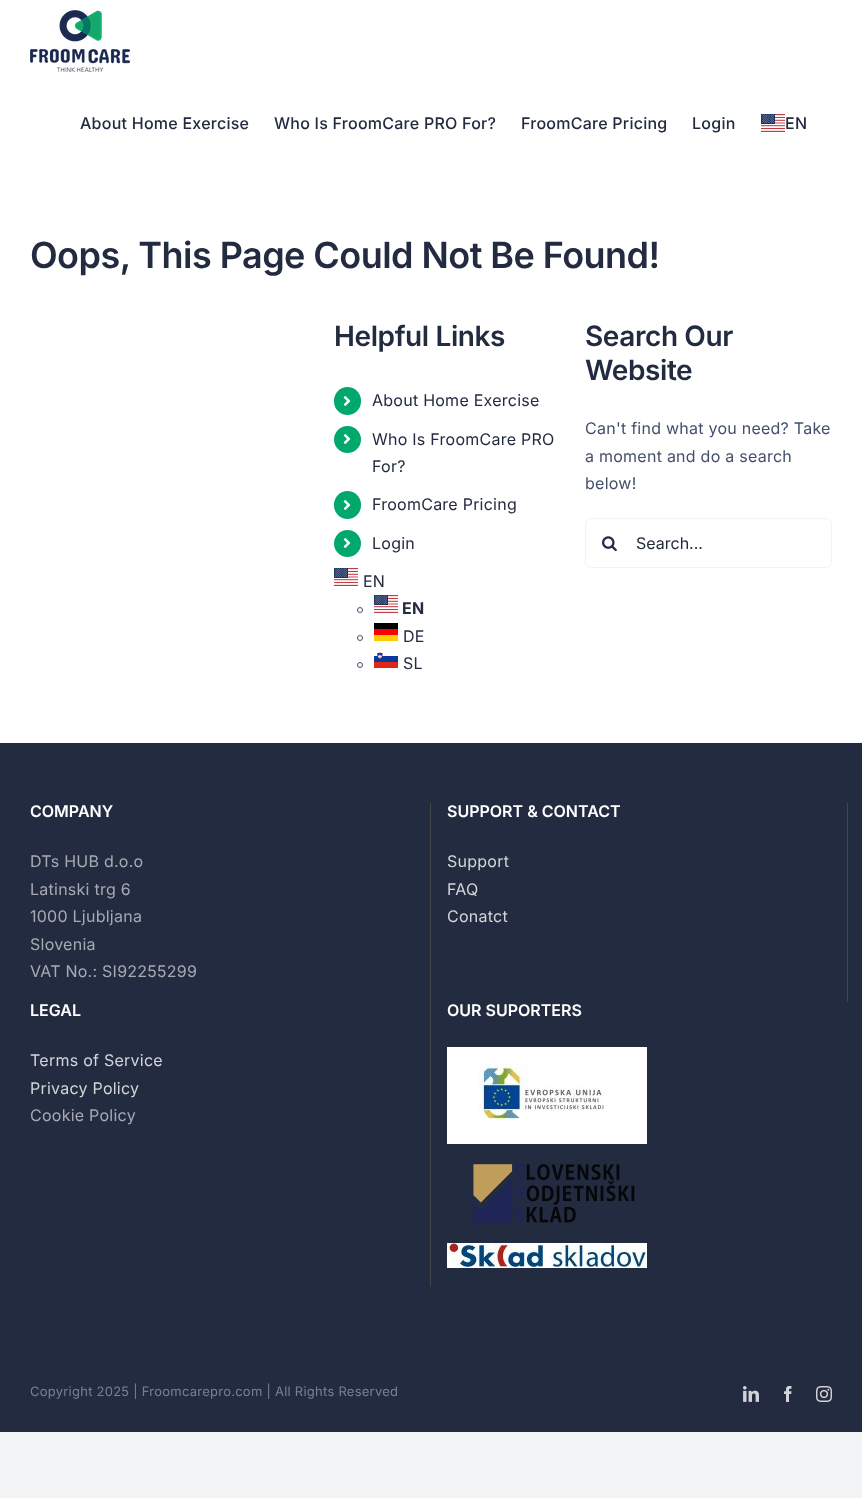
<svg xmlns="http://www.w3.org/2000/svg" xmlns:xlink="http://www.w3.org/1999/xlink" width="862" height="1498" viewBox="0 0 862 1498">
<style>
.cls-1{font:500 16px Inter;letter-spacing:0.25px;fill:#232b40}
.cls-2{font:600 36px Inter;letter-spacing:-0.55px;fill:#232b40}
.cls-3{font:600 28px Inter;letter-spacing:-0.4px;fill:#232b40}
.cls-4{font:16px Inter;letter-spacing:0.25px;fill:#232b40}
.cls-5{font:bold 16px Inter;letter-spacing:0.25px;fill:#232b40}
.cls-6{font:16px Inter;letter-spacing:0.25px;fill:#444f6c}
.cls-7{font:16px Inter;fill:#232b40}
.cls-8{font:600 16px Inter;fill:#ffffff}
.cls-9{font:16px Inter;letter-spacing:0.25px;fill:#a7aab3}
.cls-10{font:16px Inter;letter-spacing:0.25px;fill:#d3d5d9}
.cls-11{font:13px Inter;letter-spacing:0.25px;fill:#7b808c}
</style>
<rect width="100%" height="100%" fill="#f2f3f5"/>
<rect fill="#ffffff" x="0" y="0" width="862" height="743"/>
<image xlink:href="image0.png" x="30" y="10" width="100" height="62"/>
<image xlink:href="image1.png" x="761" y="114" width="24" height="18"/>
<rect fill="#00a86c" x="334" y="387" width="27" height="28" rx="13.5"/>
<image xlink:href="image2.png" x="343" y="396" width="8" height="10"/>
<circle fill="#00a86c" cx="347.5" cy="439.5" r="13.5"/>
<image xlink:href="image2.png" x="343" y="434" width="8" height="10"/>
<rect fill="#00a86c" x="334" y="491" width="27" height="28" rx="13.5"/>
<image xlink:href="image2.png" x="343" y="500" width="8" height="10"/>
<circle fill="#00a86c" cx="347.5" cy="543.5" r="13.5"/>
<image xlink:href="image2.png" x="343" y="538" width="8" height="10"/>
<image xlink:href="image1.png" x="334" y="568" width="24" height="18"/>
<circle fill="none" stroke="#444f6c" cx="360" cy="610" r="2.5"/>
<image xlink:href="image1.png" x="374" y="595" width="24" height="18"/>
<circle fill="none" stroke="#444f6c" cx="360" cy="638" r="2.5"/>
<rect fill="#ffcc00" x="374" y="635" width="24" height="6"/>
<rect fill="#000000" x="374" y="623" width="24" height="6"/>
<rect fill="#ff0000" x="374" y="629" width="24" height="6"/>
<circle fill="none" stroke="#444f6c" cx="360" cy="665" r="2.5"/>
<image xlink:href="image3.png" x="374" y="652" width="24" height="16"/>
<rect fill="none" stroke="#f2f3f5" x="585.5" y="518.5" width="246" height="49" rx="5.5"/>
<image xlink:href="image4.png" x="602" y="536" width="15" height="16"/>
<rect fill="#232b40" x="0" y="743" width="862" height="689"/>
<rect fill="#434549" x="430" y="803" width="1" height="484"/>
<rect fill="#434549" x="847" y="803" width="1" height="199"/>
<image xlink:href="image5.png" x="447" y="1047" width="200" height="97"/>
<image xlink:href="image6.png" x="473" y="1164" width="162" height="59"/>
<image xlink:href="image7.png" x="447" y="1243" width="200" height="25"/>
<image xlink:href="image8.png" x="743" y="1386" width="16" height="16"/>
<image xlink:href="image9.png" x="784" y="1386" width="8" height="16"/>
<image xlink:href="image10.png" x="816" y="1386" width="16" height="16"/>
<text class="cls-1" x="80" y="129">About Home Exercise</text>
<text class="cls-1" x="274" y="129">Who Is FroomCare PRO For?</text>
<text class="cls-1" x="521" y="129">FroomCare Pricing</text>
<text class="cls-1" x="692" y="129">Login</text>
<text class="cls-1" x="785" y="129">EN</text>
<text class="cls-2" x="30" y="268">Oops, This Page Could Not Be Found!</text>
<text class="cls-3" x="334" y="346">Helpful Links</text>
<text class="cls-4" x="372" y="406">About Home Exercise</text>
<text class="cls-4"><tspan x="372" y="445">Who Is FroomCare PRO</tspan><tspan x="372" y="472">For?</tspan></text>
<text class="cls-4" x="372" y="510">FroomCare Pricing</text>
<text class="cls-4" x="372" y="549">Login</text>
<text class="cls-4" x="363" y="587">EN</text>
<text class="cls-5" x="402" y="614">EN</text>
<text class="cls-4"><tspan x="403" y="642">DE</tspan><tspan x="403" y="669">SL</tspan></text>
<text class="cls-3"><tspan x="585" y="346">Search Our</tspan><tspan x="585" y="380">Website</tspan></text>
<text class="cls-6"><tspan x="585" y="434">Can't find what you need? Take</tspan><tspan x="585" y="462">a moment and do a search</tspan><tspan x="585" y="489">below!</tspan></text>
<text class="cls-7" x="636" y="549">Search...</text>
<text class="cls-8" x="30" y="817">COMPANY</text>
<text class="cls-9"><tspan x="30" y="867">DTs HUB d.o.o</tspan><tspan x="30" y="895">Latinski trg 6</tspan><tspan x="30" y="922">1000 Ljubljana</tspan><tspan x="30" y="950">Slovenia</tspan><tspan x="30" y="977">VAT No.: SI92255299</tspan></text>
<text class="cls-8" x="447" y="817">SUPPORT &amp; CONTACT</text>
<text class="cls-10"><tspan x="447" y="867">Support</tspan><tspan x="447" y="895">FAQ</tspan><tspan x="447" y="922">Conatct</tspan></text>
<text class="cls-8" x="30" y="1016">LEGAL</text>
<text class="cls-10"><tspan x="30" y="1066">Terms of Service</tspan><tspan x="30" y="1094">Privacy Policy</tspan></text>
<text class="cls-9" x="30" y="1121">Cookie Policy</text>
<text class="cls-8" x="447" y="1016">OUR SUPORTERS</text>
<text class="cls-11" x="30" y="1396">Copyright 2025 | Froomcarepro.com | All Rights Reserved</text>
</svg>
